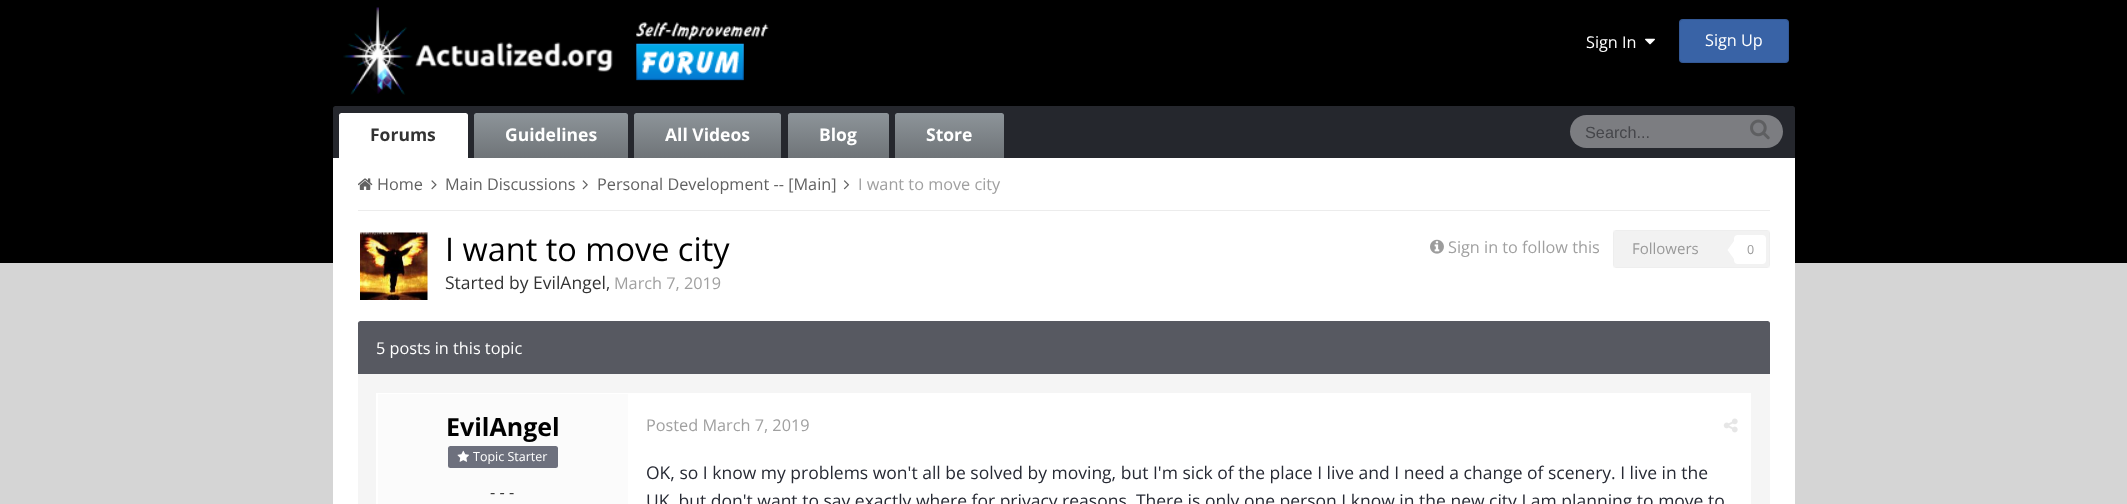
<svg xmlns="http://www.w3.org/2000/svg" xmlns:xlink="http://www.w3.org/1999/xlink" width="2127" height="504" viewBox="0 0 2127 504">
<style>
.cls-1{font:16.25px Open Sans;fill:#ffffff}
.cls-2{font:bold 17.5px Open Sans;fill:#333333}
.cls-3{font:bold 17.5px Open Sans;fill:#ffffff}
.cls-4{font:16.25px Liberation Sans;fill:#45464a}
.cls-5{font:16.25px Open Sans;fill:#616161}
.cls-6{font:16.25px Open Sans;fill:#a0a0a0}
.cls-7{font:32.5px Open Sans;fill:#000000}
.cls-8{font:17.5px Open Sans;fill:#333333}
.cls-9{font:16.25px Open Sans;fill:#333333}
.cls-10{font:15px Open Sans;fill:#999999}
.cls-11{font:12.5px Open Sans;fill:#999999}
.cls-12{font:bold 25px Open Sans;fill:#000000}
.cls-13{font:12.5px Open Sans;fill:#ffffff}
.cls-14{font:17.5px Open Sans;fill:#272a34}
</style>
<defs>
<linearGradient id="g1" gradientUnits="userSpaceOnUse" x1="551" y1="113" x2="551" y2="158"><stop offset="0" stop-color="#8d9499"/><stop offset="1" stop-color="#6f7478"/></linearGradient>
<linearGradient id="g2" gradientUnits="userSpaceOnUse" x1="708" y1="113" x2="708" y2="158"><stop offset="0" stop-color="#8d9499"/><stop offset="1" stop-color="#6f7478"/></linearGradient>
<linearGradient id="g3" gradientUnits="userSpaceOnUse" x1="838" y1="113" x2="838" y2="158"><stop offset="0" stop-color="#8d9499"/><stop offset="1" stop-color="#6f7478"/></linearGradient>
<linearGradient id="g4" gradientUnits="userSpaceOnUse" x1="949" y1="113" x2="949" y2="158"><stop offset="0" stop-color="#8d9499"/><stop offset="1" stop-color="#6f7478"/></linearGradient>
</defs>
<rect width="100%" height="100%" fill="#d5d5d5"/>
<rect fill="#000000" x="0" y="0" width="2127" height="263"/>
<image xlink:href="image0.png" x="343" y="7" width="426" height="88"/>
<image xlink:href="image1.png" x="1645" y="38" width="10" height="7"/>
<rect fill="#3963a6" x="1679" y="19" width="110" height="44" rx="4"/>
<rect fill="none" stroke="#000000" stroke-opacity="0.1" x="1679.5" y="19.5" width="109" height="43" rx="3.5"/>
<path fill="#25272d" d="M335.5 106H1792.5C1794 106 1795 107 1795 108.5V158H333V108.5C333 107 334 106 335.5 106Z"/>
<path fill="#ffffff" d="M341.5 113H465.5C467 113 468 114 468 115.5V158H339V115.5C339 114 340 113 341.5 113Z"/>
<path fill="url(#g1)" d="M476.5 113H625.5C627 113 628 114 628 115.5V158H474V115.5C474 114 475 113 476.5 113Z"/>
<path fill="url(#g2)" d="M636.5 113H778.5C780 113 781 114 781 115.5V158H634V115.5C634 114 635 113 636.5 113Z"/>
<path fill="url(#g3)" d="M790.5 113H886.5C888 113 889 114 889 115.5V158H788V115.5C788 114 789 113 790.5 113Z"/>
<path fill="url(#g4)" d="M897.5 113H1001.5C1003 113 1004 114 1004 115.5V158H895V115.5C895 114 896 113 897.5 113Z"/>
<rect fill="#7c7d81" x="1570" y="115" width="213" height="33" rx="16.5"/>
<image xlink:href="image2.png" x="1750" y="119" width="20" height="21"/>
<rect fill="#ffffff" x="333" y="158" width="1462" height="346"/>
<rect fill="#ececec" x="358" y="210" width="1412" height="1"/>
<image xlink:href="image3.png" x="358" y="178" width="15" height="12"/>
<image xlink:href="image4.png" x="431" y="180" width="6" height="10"/>
<image xlink:href="image5.png" x="582" y="180" width="6" height="10"/>
<image xlink:href="image6.png" x="843" y="180" width="7" height="10"/>
<image xlink:href="image7.png" x="360" y="232" width="68" height="68"/>
<image xlink:href="image8.png" x="1430" y="239" width="14" height="15"/>
<rect fill="#f2f2f2" x="1613" y="230" width="157" height="38" rx="4"/>
<rect fill="none" stroke="#808080" stroke-opacity="0.03" x="1613.5" y="230.5" width="156" height="37"/>
<rect fill="#ffffff" x="1734" y="235" width="32" height="29" rx="4"/>
<path fill="#ffffff" d="M1734 241V259L1727.5 250Z"/>
<path fill="#575961" d="M360.5 321H1767.5C1769 321 1770 322 1770 323.5V374H358V323.5C358 322 359 321 360.5 321Z"/>
<rect fill="#f5f5f5" x="358" y="374" width="1412" height="130"/>
<rect fill="#ffffff" x="376" y="393" width="1375" height="111"/>
<rect fill="#fbfbfb" x="378" y="394" width="250" height="110"/>
<rect fill="#6d707d" x="448" y="446" width="110" height="22" rx="2.5"/>
<image xlink:href="image9.png" x="457" y="450" width="12" height="12"/>
<image xlink:href="image10.png" x="1723" y="418" width="15" height="15"/>
<text class="cls-1" x="1586" y="48">Sign In</text>
<text class="cls-1" x="1705" y="46">Sign Up</text>
<text class="cls-2" x="370" y="141">Forums</text>
<text class="cls-3" x="505" y="141">Guidelines</text>
<text class="cls-3" x="665" y="141">All Videos</text>
<text class="cls-3" x="819" y="141">Blog</text>
<text class="cls-3" x="926" y="141">Store</text>
<text class="cls-4" x="1585" y="138">Search...</text>
<text class="cls-5" x="377" y="190">Home</text>
<text class="cls-5" x="445" y="190">Main Discussions</text>
<text class="cls-5" x="597" y="190">Personal Development -- [Main]</text>
<text class="cls-6" x="858" y="190">I want to move city</text>
<text class="cls-7" x="445" y="261">I want to move city</text>
<text class="cls-8" x="445" y="289">Started by EvilAngel</text>
<text class="cls-9" x="606" y="289">,</text>
<text class="cls-6" x="614" y="289">March 7, 2019</text>
<text class="cls-6" x="1448" y="253">Sign in to follow this</text>
<text class="cls-10" x="1632" y="254">Followers</text>
<text class="cls-11" x="1747" y="254">0</text>
<text class="cls-1" x="376" y="354">5 posts in this topic</text>
<text class="cls-12" x="446" y="436">EvilAngel</text>
<text class="cls-13" x="473" y="461">Topic Starter</text>
<text class="cls-9" x="490" y="498">- - -</text>
<text class="cls-6" x="646" y="431">Posted March 7, 2019</text>
<text class="cls-14"><tspan x="646" y="479">OK, so I know my problems won't all be solved by moving, but I'm sick of the place I live and I need a change of scenery. I live in the</tspan><tspan x="646" y="507">UK, but don't want to say exactly where for privacy reasons. There is only one person I know in the new city I am planning to move to</tspan></text>
</svg>
